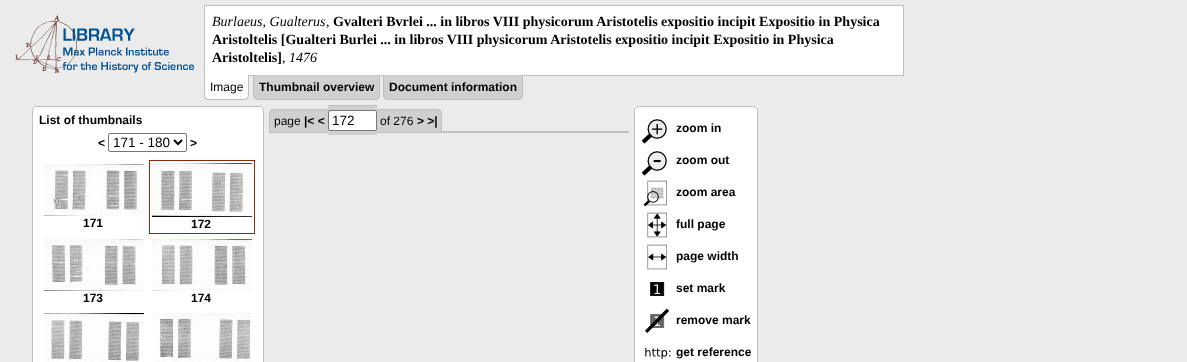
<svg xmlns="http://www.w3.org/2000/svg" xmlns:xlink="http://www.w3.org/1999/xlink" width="1187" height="362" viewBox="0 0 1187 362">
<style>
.cls-1{font:italic 14px Liberation Serif;fill:#000000}
.cls-2{font:14px Liberation Serif;fill:#000000}
.cls-3{font:bold 14px Liberation Serif;fill:#000000}
.cls-4{font:12px Liberation Sans;fill:#000000}
.cls-5{font:bold 12px Liberation Sans;fill:#000000}
.cls-6{font:13.5px Liberation Sans;fill:#000000}
</style>
<rect width="100%" height="100%" fill="#ebebeb"/>
<image xlink:href="image0.png" x="15" y="15" width="179" height="58"/>
<rect fill="#ffffff" stroke="#c0c0c0" x="204.5" y="5.5" width="699" height="70"/>
<path fill="#ffffff" d="M204 75H249V95C249 98 247 100 244 100H209C206 100 204 98 204 95Z"/>
<path fill="#c0c0c0" fill-rule="evenodd" d="M204 75H249V95C249 98 247 100 244 100H209C206 100 204 98 204 95ZM205 75H248V95C248 97 246 99 244 99H209C207 99 205 97 205 95Z"/>
<path fill="#d0d0d0" d="M253 75H380V95C380 98 378 100 375 100H258C255 100 253 98 253 95Z"/>
<path fill="#c0c0c0" fill-rule="evenodd" d="M253 75H380V95C380 98 378 100 375 100H258C255 100 253 98 253 95ZM254 75H379V95C379 97 377 99 375 99H258C256 99 254 97 254 95Z"/>
<path fill="#d0d0d0" d="M383 75H523V95C523 98 521 100 518 100H388C385 100 383 98 383 95Z"/>
<path fill="#c0c0c0" fill-rule="evenodd" d="M383 75H523V95C523 98 521 100 518 100H388C385 100 383 98 383 95ZM384 75H522V95C522 97 520 99 518 99H388C386 99 384 97 384 95Z"/>
<rect fill="#ffffff" stroke="#c0c0c0" x="32.5" y="106.5" width="231" height="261" rx="4.5"/>
<rect fill="none" stroke="#767676" x="108.5" y="133.5" width="78" height="18" rx="1.5"/>
<path fill="none" stroke="#000000" stroke-width="2" d="M174 140L178 144L182 140"/>
<image xlink:href="image1.png" x="44" y="164" width="100" height="52"/>
<rect fill="none" stroke="#892b06" x="149.5" y="160.5" width="105" height="73"/>
<image xlink:href="image2.png" x="152" y="163" width="100" height="54"/>
<image xlink:href="image3.png" x="44" y="239" width="100" height="52"/>
<image xlink:href="image4.png" x="152" y="239" width="100" height="52"/>
<image xlink:href="image5.png" x="44" y="313" width="100" height="49"/>
<image xlink:href="image6.png" x="152" y="313" width="100" height="49"/>
<rect fill="#c0c0c0" x="269" y="131" width="360" height="2"/>
<path fill="#d0d0d0" d="M274 109H304V132H269V114C269 111 271 109 274 109Z"/>
<path fill="#c0c0c0" fill-rule="evenodd" d="M274 109H304V132H269V114C269 111 271 109 274 109ZM274 110H304V132H270V114C270 112 272 110 274 110Z"/>
<rect fill="#d0d0d0" x="304" y="110" width="10" height="22"/>
<rect fill="#c0c0c0" x="304" y="109" width="10" height="1"/>
<rect fill="#d0d0d0" x="314" y="109" width="14" height="23"/>
<rect fill="#c0c0c0" x="314" y="109" width="14" height="1"/>
<rect fill="#d0d0d0" x="328" y="106" width="49" height="29"/>
<rect fill="#c0c0c0" x="328" y="105" width="49" height="1"/>
<rect fill="#d0d0d0" x="377" y="109" width="3" height="23"/>
<rect fill="#c0c0c0" x="377" y="109" width="40" height="1"/>
<rect fill="#d0d0d0" x="380" y="110" width="37" height="22"/>
<rect fill="#d0d0d0" x="417" y="109" width="10" height="23"/>
<rect fill="#c0c0c0" x="417" y="109" width="10" height="1"/>
<path fill="#d0d0d0" d="M427 109H437C440 109 442 111 442 114V132H427Z"/>
<path fill="#c0c0c0" fill-rule="evenodd" d="M427 109H437C440 109 442 111 442 114V132H427ZM427 110H437C439 110 441 112 441 114V132H427Z"/>
<rect fill="#ffffff" stroke="#767676" x="328.5" y="110.5" width="48" height="20" rx="1.5"/>
<rect fill="#ffffff" stroke="#c0c0c0" x="634.5" y="106.5" width="123" height="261" rx="4.5"/>
<image xlink:href="image7.png" x="641" y="119" width="26" height="25"/>
<image xlink:href="image8.png" x="641" y="151" width="26" height="25"/>
<image xlink:href="image9.png" x="643" y="180" width="24" height="27"/>
<image xlink:href="image10.png" x="647" y="212" width="20" height="26"/>
<image xlink:href="image11.png" x="647" y="244" width="20" height="26"/>
<image xlink:href="image12.png" x="650" y="282" width="15" height="14"/>
<image xlink:href="image13.png" x="645" y="308" width="24" height="25"/>
<image xlink:href="image14.png" x="645" y="347" width="26" height="12"/>
<text class="cls-1" x="212" y="26">Burlaeus, Gualterus</text>
<text class="cls-2" x="326" y="26">,</text>
<text class="cls-3" x="333" y="26">Gvalteri Bvrlei ... in libros VIII physicorum Aristotelis expositio incipit Expositio in Physica</text>
<text class="cls-3"><tspan x="212" y="44">Aristoltelis [Gualteri Burlei ... in libros VIII physicorum Aristotelis expositio incipit Expositio in Physica</tspan><tspan x="212" y="62">Aristoltelis]</tspan></text>
<text class="cls-2" x="282" y="62">,</text>
<text class="cls-1" x="289" y="62">1476</text>
<text class="cls-4" x="210" y="91">Image</text>
<text class="cls-5" x="259" y="91">Thumbnail overview</text>
<text class="cls-5" x="389" y="91">Document information</text>
<text class="cls-5" x="39" y="124">List of thumbnails</text>
<text class="cls-5" x="98" y="147">&lt;</text>
<text class="cls-6" x="113" y="147">171 - 180</text>
<text class="cls-5" x="190" y="147">&gt;</text>
<text class="cls-5" x="83" y="227">171</text>
<text class="cls-5" x="191" y="228">172</text>
<text class="cls-5" x="83" y="302">173</text>
<text class="cls-5" x="191" y="302">174</text>
<text class="cls-4" x="274" y="125">page</text>
<text class="cls-5" x="304" y="125">|&lt; &lt;</text>
<text class="cls-6" x="332" y="125">172</text>
<text class="cls-4" x="380" y="125">of 276</text>
<text class="cls-5" x="417" y="125">&gt; &gt;|</text>
<text class="cls-5" x="676" y="132">zoom in</text>
<text class="cls-5" x="676" y="164">zoom out</text>
<text class="cls-5" x="676" y="196">zoom area</text>
<text class="cls-5" x="676" y="228">full page</text>
<text class="cls-5" x="676" y="260">page width</text>
<text class="cls-5" x="676" y="292">set mark</text>
<text class="cls-5" x="676" y="324">remove mark</text>
<text class="cls-5" x="676" y="356">get reference</text>
</svg>
